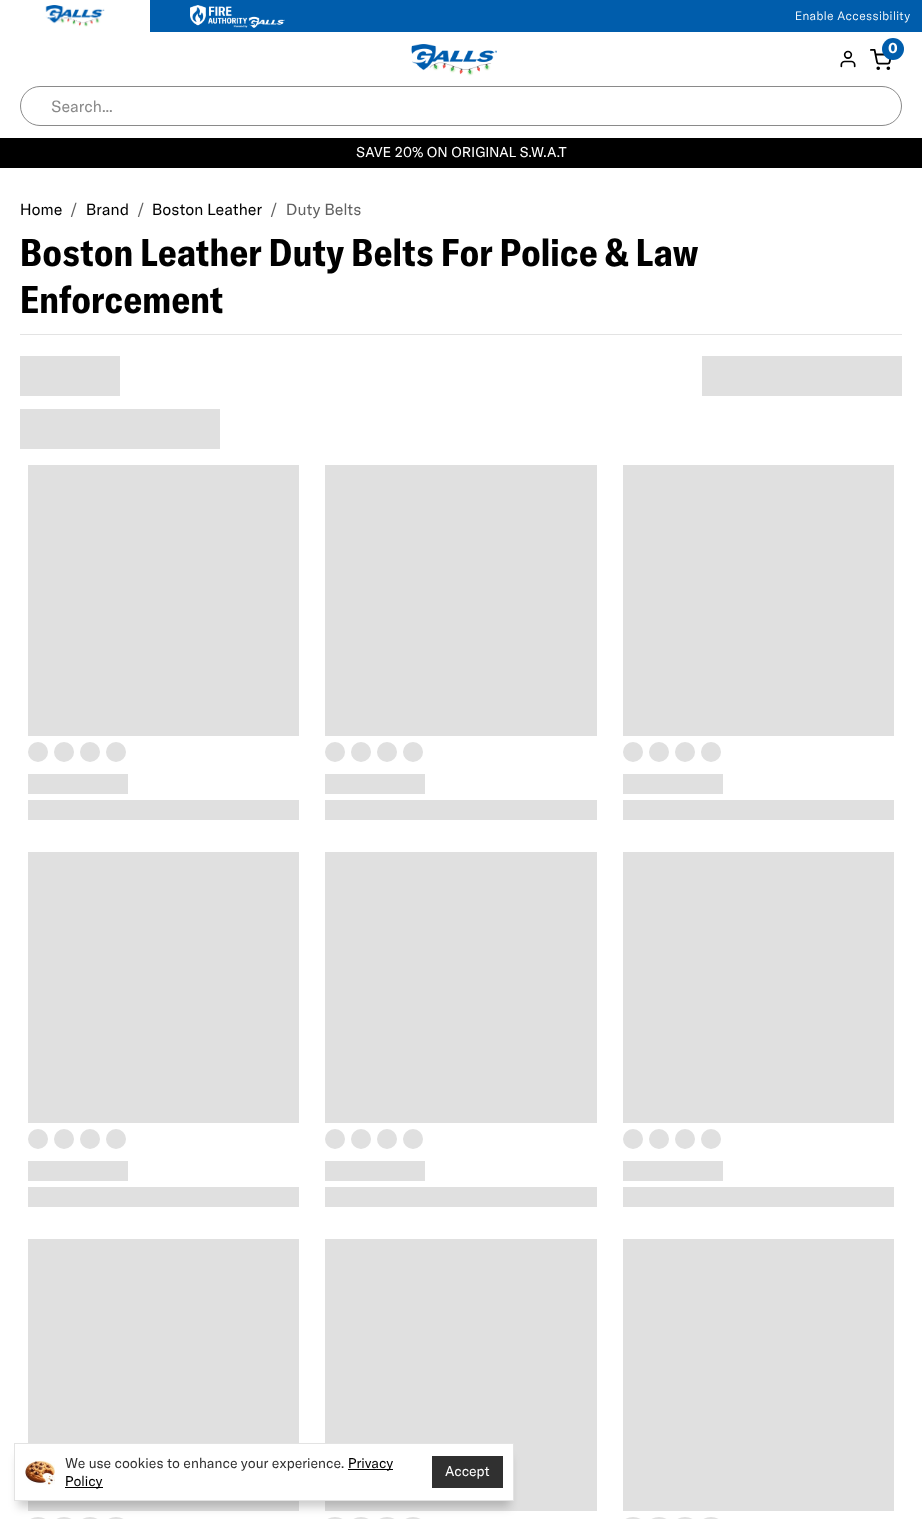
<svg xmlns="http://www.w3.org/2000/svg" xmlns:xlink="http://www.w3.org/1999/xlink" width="922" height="1519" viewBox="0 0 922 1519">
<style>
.cls-1{font:300 12px GT America;letter-spacing:0.4px;fill:#ffffff}
.cls-2{font:bold 14px GT America;fill:#ffffff}
.cls-3{font:16px GT America;fill:#8a8a8a}
.cls-4{font:14px GT America;fill:#ffffff}
.cls-5{font:16px GT America;fill:#000000}
.cls-6{font:16px GT America;fill:#616161}
.cls-7{font:bold 38px 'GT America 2';fill:#000000}
.cls-8{font:14px GT America;fill:#303030}
.cls-9{font:14px GT America;fill:#000000}
</style>
<rect width="100%" height="100%" fill="#ffffff"/>
<rect fill="#005dac" x="150" y="0" width="772" height="32"/>
<image xlink:href="image0.png" x="45" y="5" width="60" height="22"/>
<image xlink:href="image1.png" x="190" y="5" width="95" height="23"/>
<image xlink:href="image2.png" x="411" y="44" width="86" height="32"/>
<image xlink:href="image3.png" x="870" y="49" width="22" height="21"/>
<circle fill="#005dac" cx="893" cy="49" r="11"/>
<image xlink:href="image4.png" x="840" y="50" width="16" height="18"/>
<rect fill="none" stroke="#8a8a8a" x="20.5" y="86.5" width="881" height="39" rx="19.5"/>
<rect fill="#000000" x="0" y="138" width="922" height="30"/>
<rect fill="#e3e3e3" x="20" y="334" width="882" height="1"/>
<rect fill="#e0e0e0" x="20" y="356" width="100" height="40"/>
<rect fill="#e0e0e0" x="702" y="356" width="200" height="40"/>
<rect fill="#e0e0e0" x="20" y="409" width="200" height="40"/>
<rect fill="#e0e0e0" x="28" y="465" width="271" height="271"/>
<circle fill="#e0e0e0" cx="38" cy="752" r="10"/>
<circle fill="#e0e0e0" cx="64" cy="752" r="10"/>
<circle fill="#e0e0e0" cx="90" cy="752" r="10"/>
<circle fill="#e0e0e0" cx="116" cy="752" r="10"/>
<rect fill="#e0e0e0" x="28" y="774" width="100" height="20"/>
<rect fill="#e0e0e0" x="28" y="800" width="271" height="20"/>
<rect fill="#e0e0e0" x="325" y="465" width="272" height="271"/>
<circle fill="#e0e0e0" cx="335" cy="752" r="10"/>
<circle fill="#e0e0e0" cx="361" cy="752" r="10"/>
<circle fill="#e0e0e0" cx="387" cy="752" r="10"/>
<circle fill="#e0e0e0" cx="413" cy="752" r="10"/>
<rect fill="#e0e0e0" x="325" y="774" width="100" height="20"/>
<rect fill="#e0e0e0" x="325" y="800" width="272" height="20"/>
<rect fill="#e0e0e0" x="623" y="465" width="271" height="271"/>
<circle fill="#e0e0e0" cx="633" cy="752" r="10"/>
<circle fill="#e0e0e0" cx="659" cy="752" r="10"/>
<circle fill="#e0e0e0" cx="685" cy="752" r="10"/>
<circle fill="#e0e0e0" cx="711" cy="752" r="10"/>
<rect fill="#e0e0e0" x="623" y="774" width="100" height="20"/>
<rect fill="#e0e0e0" x="623" y="800" width="271" height="20"/>
<rect fill="#e0e0e0" x="28" y="852" width="271" height="271"/>
<circle fill="#e0e0e0" cx="38" cy="1139" r="10"/>
<circle fill="#e0e0e0" cx="64" cy="1139" r="10"/>
<circle fill="#e0e0e0" cx="90" cy="1139" r="10"/>
<circle fill="#e0e0e0" cx="116" cy="1139" r="10"/>
<rect fill="#e0e0e0" x="28" y="1161" width="100" height="20"/>
<rect fill="#e0e0e0" x="28" y="1187" width="271" height="20"/>
<rect fill="#e0e0e0" x="325" y="852" width="272" height="271"/>
<circle fill="#e0e0e0" cx="335" cy="1139" r="10"/>
<circle fill="#e0e0e0" cx="361" cy="1139" r="10"/>
<circle fill="#e0e0e0" cx="387" cy="1139" r="10"/>
<circle fill="#e0e0e0" cx="413" cy="1139" r="10"/>
<rect fill="#e0e0e0" x="325" y="1161" width="100" height="20"/>
<rect fill="#e0e0e0" x="325" y="1187" width="272" height="20"/>
<rect fill="#e0e0e0" x="623" y="852" width="271" height="271"/>
<circle fill="#e0e0e0" cx="633" cy="1139" r="10"/>
<circle fill="#e0e0e0" cx="659" cy="1139" r="10"/>
<circle fill="#e0e0e0" cx="685" cy="1139" r="10"/>
<circle fill="#e0e0e0" cx="711" cy="1139" r="10"/>
<rect fill="#e0e0e0" x="623" y="1161" width="100" height="20"/>
<rect fill="#e0e0e0" x="623" y="1187" width="271" height="20"/>
<rect fill="#e0e0e0" x="28" y="1239" width="271" height="272"/>
<rect fill="#e0e0e0" x="28" y="1517" width="20" height="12" rx="10"/>
<rect fill="#e0e0e0" x="54" y="1517" width="20" height="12" rx="10"/>
<rect fill="#e0e0e0" x="80" y="1517" width="20" height="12" rx="10"/>
<rect fill="#e0e0e0" x="106" y="1517" width="20" height="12" rx="10"/>
<rect fill="#e0e0e0" x="325" y="1239" width="272" height="272"/>
<rect fill="#e0e0e0" x="325" y="1517" width="20" height="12" rx="10"/>
<rect fill="#e0e0e0" x="351" y="1517" width="20" height="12" rx="10"/>
<rect fill="#e0e0e0" x="377" y="1517" width="20" height="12" rx="10"/>
<rect fill="#e0e0e0" x="403" y="1517" width="20" height="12" rx="10"/>
<rect fill="#e0e0e0" x="623" y="1239" width="271" height="272"/>
<rect fill="#e0e0e0" x="623" y="1517" width="20" height="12" rx="10"/>
<rect fill="#e0e0e0" x="649" y="1517" width="20" height="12" rx="10"/>
<rect fill="#e0e0e0" x="675" y="1517" width="20" height="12" rx="10"/>
<rect fill="#e0e0e0" x="701" y="1517" width="20" height="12" rx="10"/>
<rect fill="#000000" fill-opacity="0.2" filter="blur(5px)" x="18" y="1457" width="492" height="50"/>
<rect fill="#ffffff" stroke="#e3e3e3" x="14.5" y="1443.5" width="499" height="57"/>
<image xlink:href="image5.png" x="25" y="1460" width="30" height="25"/>
<rect fill="#000000" x="348" y="1469" width="45" height="1"/>
<rect fill="#000000" x="65" y="1487" width="38" height="1"/>
<rect fill="#303030" x="432" y="1456" width="71" height="32"/>
<text class="cls-1" x="795" y="20">Enable Accessibility</text>
<text class="cls-2" x="888" y="53">0</text>
<text class="cls-3" x="51" y="112">Search...</text>
<text class="cls-4" x="356" y="157">SAVE 20% ON ORIGINAL S.W.A.T</text>
<text class="cls-5" x="20" y="215">Home</text>
<text class="cls-6" x="70" y="215">/</text>
<text class="cls-5" x="86" y="215">Brand</text>
<text class="cls-6" x="137" y="215">/</text>
<text class="cls-5" x="152" y="215">Boston Leather</text>
<text class="cls-6" x="270" y="215">/</text>
<text class="cls-6" x="286" y="215">Duty Belts</text>
<text class="cls-7"><tspan x="20" y="266">Boston Leather Duty Belts For Police &amp; Law</tspan><tspan x="20" y="313">Enforcement</tspan></text>
<text class="cls-8" x="65" y="1468">We use cookies to enhance your experience.</text>
<text class="cls-9" x="348" y="1468">Privacy</text>
<text class="cls-9" x="65" y="1486">Policy</text>
<text class="cls-4" x="445" y="1476">Accept</text>
</svg>
